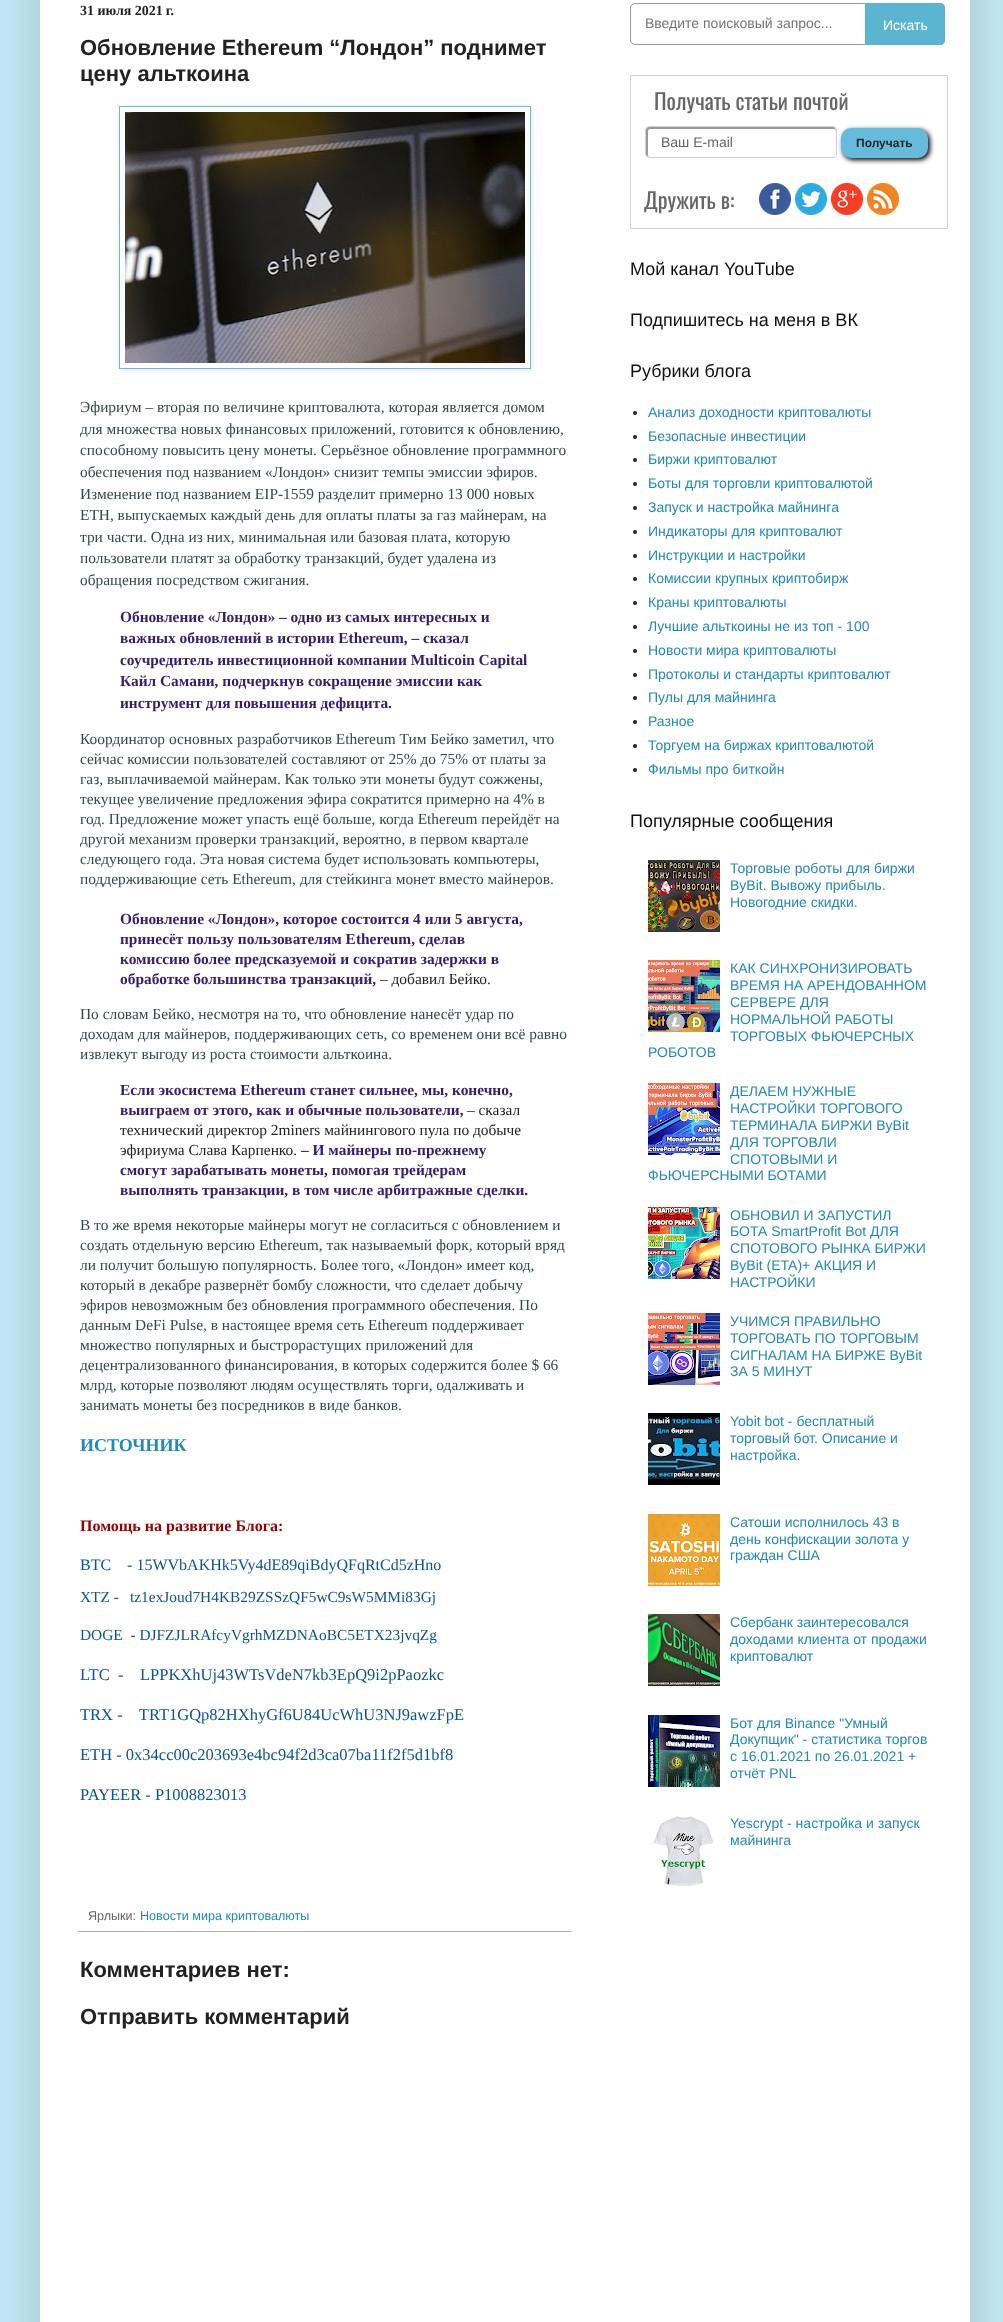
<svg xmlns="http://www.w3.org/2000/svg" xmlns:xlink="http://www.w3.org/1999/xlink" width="1003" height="2322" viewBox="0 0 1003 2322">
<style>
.cls-1{font:bold 14px Liberation Serif;fill:#222222}
.cls-2{font:bold 22px Liberation Sans;fill:#222222}
.cls-3{font:15.4px Liberation Serif;fill:#37474f}
.cls-4{font:bold 15.4px Liberation Serif;fill:#351c75}
.cls-5{font:15.4px Liberation Serif;fill:#222222}
.cls-6{font:bold 18px Liberation Serif;fill:#2288bb}
.cls-7{font:bold 16px Liberation Serif;fill:#990000}
.cls-8{font:16px Liberation Serif;fill:#0b5394}
.cls-9{font:15.4px Liberation Serif;fill:#0b5394}
.cls-10{font:16.5px Liberation Serif;fill:#0b5394}
.cls-11{font:12.6px Liberation Sans;fill:#666666}
.cls-12{font:12.6px Liberation Sans;fill:#2288bb}
.cls-13{font:14px Liberation Sans;fill:#757575}
.cls-14{font:14px Liberation Sans;fill:#ffffff}
.cls-15{font:22px Oswald;fill:#666666}
.cls-16{font:14px Liberation Sans;fill:#666666}
.cls-17{font:bold 12px Liberation Sans;fill:#282524}
.cls-18{font:18px Liberation Sans;fill:#111111}
.cls-19{font:14px Liberation Sans;fill:#2288bb}
</style>
<defs>
<clipPath id="clip1"><path d="M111 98H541V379H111ZM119 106H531V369H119Z" clip-rule="evenodd"/></clipPath>
</defs>
<rect width="100%" height="100%" fill="#c1e5f2"/>
<rect fill="#000000" fill-opacity="0.15" filter="blur(20px)" x="40" y="-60" width="930" height="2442"/>
<rect fill="#ffffff" x="40" y="0" width="930" height="2322"/>
<g clip-path="url(#clip1)">
<rect fill="#000000" fill-opacity="0.1" filter="blur(2.5px)" x="120" y="107" width="412" height="263"/>
</g>
<rect fill="none" stroke="#66bbdd" x="119.5" y="106.5" width="411" height="262"/>
<image xlink:href="image0.png" x="125" y="112" width="400" height="251"/>
<rect fill="#b2b2b2" x="78" y="1931" width="494" height="1"/>
<rect fill="none" stroke="#999999" x="630.5" y="3.5" width="314" height="41" rx="4.5"/>
<path fill="#5bb4d0" d="M865 3H940C943 3 945 5 945 8V40C945 43 943 45 940 45H865Z"/>
<rect fill="none" stroke="#d3d3d3" x="630.5" y="75.5" width="317" height="153"/>
<path fill="#999999" d="M650 129H834C835 129 836 130 836 131C836 129 835 127 833 127H649C647 127 646 128 646 130V146C646 150 644 157 650 157C649 157 648 156 648 155V131C648 130 649 129 650 129Z"/>
<rect fill="none" stroke="#d3d3d3" x="645.5" y="126.5" width="191" height="31" rx="3.5"/>
<rect fill="#000000" filter="blur(2.5px)" x="843" y="130" width="87" height="30" rx="10"/>
<rect fill="#66bbdd" x="841" y="128" width="87" height="30" rx="10"/>
<image xlink:href="image1.png" x="759" y="183" width="32" height="32"/>
<image xlink:href="image2.png" x="795" y="183" width="32" height="32"/>
<image xlink:href="image3.png" x="831" y="183" width="32" height="32"/>
<image xlink:href="image4.png" x="867" y="183" width="32" height="32"/>
<circle fill="#222222" cx="635" cy="413" r="2"/>
<circle fill="#222222" cx="635" cy="437" r="2"/>
<circle fill="#222222" cx="635" cy="460" r="2"/>
<circle fill="#222222" cx="635" cy="484" r="2"/>
<circle fill="#222222" cx="635" cy="508" r="2"/>
<circle fill="#222222" cx="635" cy="532" r="2"/>
<circle fill="#222222" cx="635" cy="556" r="2"/>
<circle fill="#222222" cx="635" cy="579" r="2"/>
<circle fill="#222222" cx="635" cy="603" r="2"/>
<circle fill="#222222" cx="635" cy="627" r="2"/>
<circle fill="#222222" cx="635" cy="651" r="2"/>
<circle fill="#222222" cx="635" cy="675" r="2"/>
<circle fill="#222222" cx="635" cy="698" r="2"/>
<circle fill="#222222" cx="635" cy="722" r="2"/>
<circle fill="#222222" cx="635" cy="746" r="2"/>
<circle fill="#222222" cx="635" cy="770" r="2"/>
<image xlink:href="image5.png" x="648" y="860" width="72" height="72"/>
<image xlink:href="image6.png" x="648" y="960" width="72" height="72"/>
<image xlink:href="image7.png" x="648" y="1083" width="72" height="72"/>
<image xlink:href="image8.png" x="648" y="1207" width="72" height="72"/>
<image xlink:href="image9.png" x="648" y="1313" width="72" height="72"/>
<image xlink:href="image10.png" x="648" y="1413" width="72" height="72"/>
<image xlink:href="image11.png" x="648" y="1514" width="72" height="72"/>
<image xlink:href="image12.png" x="648" y="1614" width="72" height="72"/>
<image xlink:href="image13.png" x="648" y="1715" width="72" height="72"/>
<image xlink:href="image14.png" x="650" y="1815" width="69" height="72"/>
<text class="cls-1" x="80" y="15">31 июля 2021 г.</text>
<text class="cls-2"><tspan x="80" y="55">Обновление Ethereum “Лондон” поднимет</tspan><tspan x="80" y="81">цену альткоина</tspan></text>
<text class="cls-3"><tspan x="80" y="412">Эфириум – вторая по величине криптовалюта, которая является домом</tspan><tspan x="80" y="434">для множества новых финансовых приложений, готовится к обновлению,</tspan><tspan x="80" y="455">способному повысить цену монеты. Серьёзное обновление программного</tspan><tspan x="80" y="477">обеспечения под названием «Лондон» снизит темпы эмиссии эфиров.</tspan><tspan x="80" y="499">Изменение под названием EIP-1559 разделит примерно 13 000 новых</tspan><tspan x="80" y="520">ETH, выпускаемых каждый день для оплаты платы за газ майнерам, на</tspan><tspan x="80" y="542">три части. Одна из них, минимальная или базовая плата, которую</tspan><tspan x="80" y="563">пользователи платят за обработку транзакций, будет удалена из</tspan><tspan x="80" y="585">обращения посредством сжигания.</tspan></text>
<text class="cls-4"><tspan x="120" y="622">Обновление «Лондон» – одно из самых интересных и</tspan><tspan x="120" y="643">важных обновлений в истории Ethereum, – сказал</tspan><tspan x="120" y="665">соучредитель инвестиционной компании Multicoin Capital</tspan><tspan x="120" y="686">Кайл Самани, подчеркнув сокращение эмиссии как</tspan><tspan x="120" y="708">инструмент для повышения дефицита.</tspan></text>
<text class="cls-3"><tspan x="80" y="744">Координатор основных разработчиков Ethereum Тим Бейко заметил, что</tspan><tspan x="80" y="764">сейчас комиссии пользователей составляют от 25% до 75% от платы за</tspan><tspan x="80" y="784">газ, выплачиваемой майнерам. Как только эти монеты будут сожжены,</tspan><tspan x="80" y="804">текущее увеличение предложения эфира сократится примерно на 4% в</tspan><tspan x="80" y="824">год. Предложение может упасть ещё больше, когда Ethereum перейдёт на</tspan><tspan x="80" y="844">другой механизм проверки транзакций, вероятно, в первом квартале</tspan><tspan x="80" y="864">следующего года. Эта новая система будет использовать компьютеры,</tspan><tspan x="80" y="884">поддерживающие сеть Ethereum, для стейкинга монет вместо майнеров.</tspan></text>
<text class="cls-4"><tspan x="120" y="924">Обновление «Лондон», которое состоится 4 или 5 августа,</tspan><tspan x="120" y="944">принесёт пользу пользователям Ethereum, сделав</tspan><tspan x="120" y="964">комиссию более предсказуемой и сократив задержки в</tspan><tspan x="120" y="984">обработке большинства транзакций,</tspan></text>
<text class="cls-5" x="380" y="984">– добавил Бейко.</text>
<text class="cls-3"><tspan x="80" y="1019">По словам Бейко, несмотря на то, что обновление нанесёт удар по</tspan><tspan x="80" y="1039">доходам для майнеров, поддерживающих сеть, со временем они всё равно</tspan><tspan x="80" y="1059">извлекут выгоду из роста стоимости альткоина.</tspan></text>
<text class="cls-4"><tspan x="120" y="1095">Если экосистема Ethereum станет сильнее, мы, конечно,</tspan><tspan x="120" y="1115">выиграем от этого, как и обычные пользователи,</tspan></text>
<text class="cls-5" x="467" y="1115">– сказал</text>
<text class="cls-5"><tspan x="120" y="1135">технический директор 2miners майнингового пула по добыче</tspan><tspan x="120" y="1155">эфириума Слава Карпенко.</tspan></text>
<text class="cls-4" x="301" y="1155">– И майнеры по-прежнему</text>
<text class="cls-4"><tspan x="120" y="1175">смогут зарабатывать монеты, помогая трейдерам</tspan><tspan x="120" y="1195">выполнять транзакции, в том числе арбитражные сделки.</tspan></text>
<text class="cls-3"><tspan x="80" y="1230">В то же время некоторые майнеры могут не согласиться с обновлением и</tspan><tspan x="80" y="1250">создать отдельную версию Ethereum, так называемый форк, который вряд</tspan><tspan x="80" y="1270">ли получит большую популярность. Более того, «Лондон» имеет код,</tspan><tspan x="80" y="1290">который в декабре развернёт бомбу сложности, что сделает добычу</tspan><tspan x="80" y="1310">эфиров невозможным без обновления программного обеспечения. По</tspan><tspan x="80" y="1330">данным DeFi Pulse, в настоящее время сеть Ethereum поддерживает</tspan><tspan x="80" y="1350">множество популярных и быстрорастущих приложений для</tspan><tspan x="80" y="1370">децентрализованного финансирования, в которых содержится более $ 66</tspan><tspan x="80" y="1390">млрд, которые позволяют людям осуществлять торги, одалживать и</tspan><tspan x="80" y="1410">занимать монеты без посредников в виде банков.</tspan></text>
<text class="cls-6" x="80" y="1451">ИСТОЧНИК</text>
<text class="cls-7" x="80" y="1531">Помощь на развитие Блога:</text>
<text class="cls-8" xml:space="preserve" x="80" y="1570">BTC    - 15WVbAKHk5Vy4dE89qiBdyQFqRtCd5zHno</text>
<text class="cls-9" x="80" y="1602">XTZ -</text>
<text class="cls-9" x="130" y="1602">tz1exJoud7H4KB29ZSSzQF5wC9sW5MMi83Gj</text>
<text class="cls-9" xml:space="preserve" x="80" y="1640">DOGE  - DJFZJLRAfcyVgrhMZDNAoBC5ETX23jvqZg</text>
<text class="cls-10" xml:space="preserve" x="80" y="1680">LTC  -</text>
<text class="cls-10" x="140" y="1680">LPPKXhUj43WTsVdeN7kb3EpQ9i2pPaozkc</text>
<text class="cls-10" xml:space="preserve" x="80" y="1720">TRX -    TRT1GQp82HXhyGf6U84UcWhU3NJ9awzFpE</text>
<text class="cls-10" x="80" y="1760">ETH - 0x34cc00c203693e4bc94f2d3ca07ba11f2f5d1bf8</text>
<text class="cls-10" x="80" y="1800">PAYEER - P1008823013</text>
<text class="cls-11" x="88" y="1920">Ярлыки:</text>
<text class="cls-12" x="140" y="1920">Новости мира криптовалюты</text>
<text class="cls-2" x="80" y="1977">Комментариев нет:</text>
<text class="cls-2" x="80" y="2024">Отправить комментарий</text>
<text class="cls-13" x="645" y="28">Введите поисковый запрос...</text>
<text class="cls-14" x="883" y="30">Искать</text>
<text class="cls-15" x="654" y="110">Получать статьи почтой</text>
<text class="cls-16" x="661" y="147">Ваш E-mail</text>
<text class="cls-17" x="856" y="147">Получать</text>
<text class="cls-15" x="644" y="209">Дружить в:</text>
<text class="cls-18" x="630" y="275">Мой канал YouTube</text>
<text class="cls-18" x="630" y="326">Подпишитесь на меня в ВК</text>
<text class="cls-18" x="630" y="377">Рубрики блога</text>
<text class="cls-19"><tspan x="648" y="417">Анализ доходности криптовалюты</tspan><tspan x="648" y="441">Безопасные инвестиции</tspan><tspan x="648" y="464">Биржи криптовалют</tspan><tspan x="648" y="488">Боты для торговли криптовалютой</tspan><tspan x="648" y="512">Запуск и настройка майнинга</tspan><tspan x="648" y="536">Индикаторы для криптовалют</tspan><tspan x="648" y="560">Инструкции и настройки</tspan><tspan x="648" y="583">Комиссии крупных криптобирж</tspan><tspan x="648" y="607">Краны криптовалюты</tspan><tspan x="648" y="631">Лучшие альткоины не из топ - 100</tspan><tspan x="648" y="655">Новости мира криптовалюты</tspan><tspan x="648" y="679">Протоколы и стандарты криптовалют</tspan><tspan x="648" y="702">Пулы для майнинга</tspan><tspan x="648" y="726">Разное</tspan><tspan x="648" y="750">Торгуем на биржах криптовалютой</tspan><tspan x="648" y="774">Фильмы про биткойн</tspan></text>
<text class="cls-18" x="630" y="827">Популярные сообщения</text>
<text class="cls-19"><tspan x="730" y="873">Торговые роботы для биржи</tspan><tspan x="730" y="890">ByBit. Вывожу прибыль.</tspan><tspan x="730" y="907">Новогодние скидки.</tspan></text>
<text class="cls-19"><tspan x="730" y="973">КАК СИНХРОНИЗИРОВАТЬ</tspan><tspan x="730" y="990">ВРЕМЯ НА АРЕНДОВАННОМ</tspan><tspan x="730" y="1007">СЕРВЕРЕ ДЛЯ</tspan><tspan x="730" y="1024">НОРМАЛЬНОЙ РАБОТЫ</tspan><tspan x="730" y="1041">ТОРГОВЫХ ФЬЮЧЕРСНЫХ</tspan></text>
<text class="cls-19" x="648" y="1057">РОБОТОВ</text>
<text class="cls-19"><tspan x="730" y="1096">ДЕЛАЕМ НУЖНЫЕ</tspan><tspan x="730" y="1113">НАСТРОЙКИ ТОРГОВОГО</tspan><tspan x="730" y="1130">ТЕРМИНАЛА БИРЖИ ByBit</tspan><tspan x="730" y="1147">ДЛЯ ТОРГОВЛИ</tspan><tspan x="730" y="1164">СПОТОВЫМИ И</tspan></text>
<text class="cls-19" x="648" y="1180">ФЬЮЧЕРСНЫМИ БОТАМИ</text>
<text class="cls-19"><tspan x="730" y="1220">ОБНОВИЛ И ЗАПУСТИЛ</tspan><tspan x="730" y="1236">БОТА SmartProfit Bot ДЛЯ</tspan><tspan x="730" y="1253">СПОТОВОГО РЫНКА БИРЖИ</tspan><tspan x="730" y="1270">ByBit (ETA)+ АКЦИЯ И</tspan><tspan x="730" y="1287">НАСТРОЙКИ</tspan></text>
<text class="cls-19"><tspan x="730" y="1326">УЧИМСЯ ПРАВИЛЬНО</tspan><tspan x="730" y="1343">ТОРГОВАТЬ ПО ТОРГОВЫМ</tspan><tspan x="730" y="1360">СИГНАЛАМ НА БИРЖЕ ByBit</tspan><tspan x="730" y="1376">ЗА 5 МИНУТ</tspan></text>
<text class="cls-19"><tspan x="730" y="1426">Yobit bot - бесплатный</tspan><tspan x="730" y="1443">торговый бот. Описание и</tspan><tspan x="730" y="1460">настройка.</tspan></text>
<text class="cls-19"><tspan x="730" y="1527">Сатоши исполнилось 43 в</tspan><tspan x="730" y="1544">день конфискации золота у</tspan><tspan x="730" y="1560">граждан США</tspan></text>
<text class="cls-19"><tspan x="730" y="1627">Сбербанк заинтересовался</tspan><tspan x="730" y="1644">доходами клиента от продажи</tspan><tspan x="730" y="1661">криптовалют</tspan></text>
<text class="cls-19"><tspan x="730" y="1728">Бот для Binance "Умный</tspan><tspan x="730" y="1744">Докупщик" - статистика торгов</tspan><tspan x="730" y="1761">с 16.01.2021 по 26.01.2021 +</tspan><tspan x="730" y="1778">отчёт PNL</tspan></text>
<text class="cls-19"><tspan x="730" y="1828">Yescrypt - настройка и запуск</tspan><tspan x="730" y="1845">майнинга</tspan></text>
</svg>
